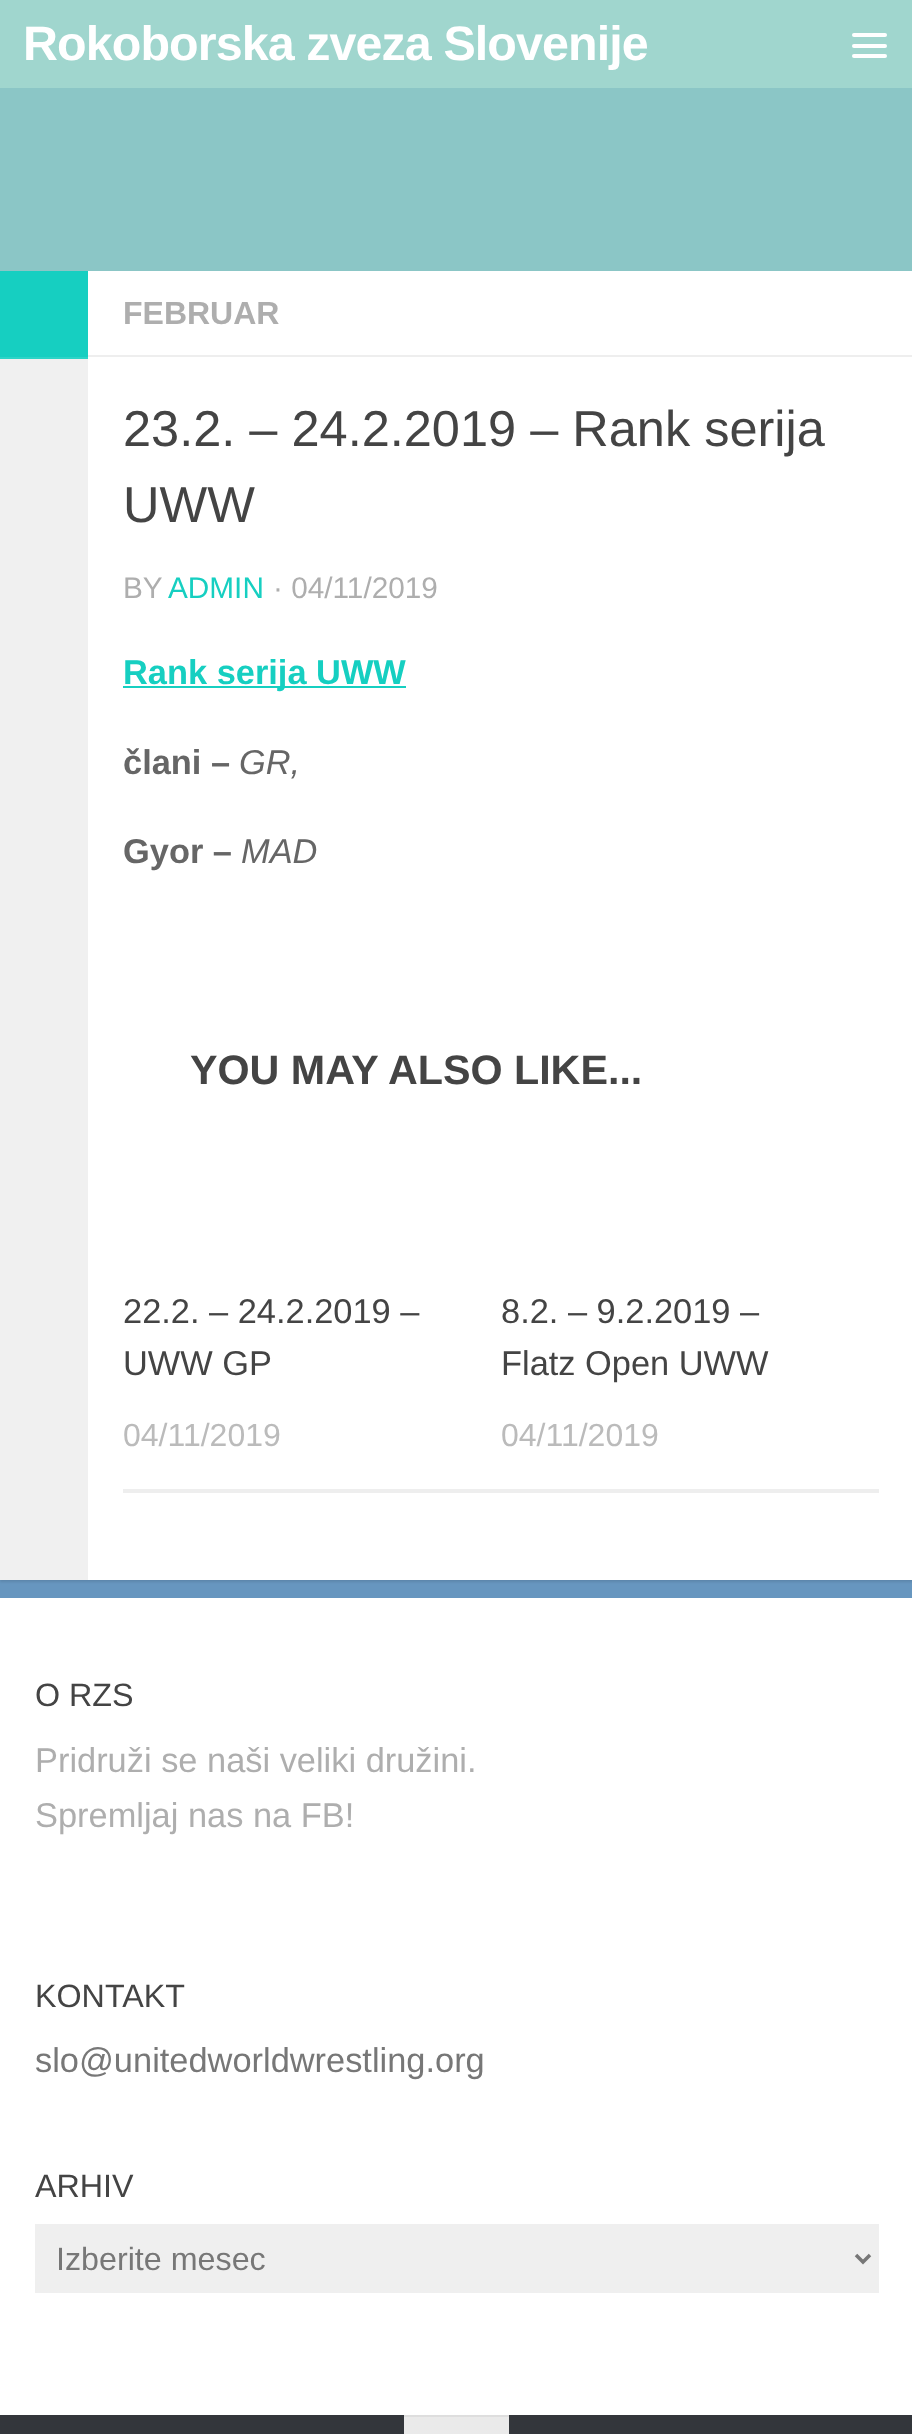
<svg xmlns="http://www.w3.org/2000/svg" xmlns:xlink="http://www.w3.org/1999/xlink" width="912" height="2434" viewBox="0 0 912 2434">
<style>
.cls-1{font:bold 48.4px Liberation Sans;letter-spacing:-0.9px;fill:#ffffff}
.cls-2{font:bold 32px Liberation Sans;fill:#aeaeae}
.cls-3{font:50.5px Liberation Sans;fill:#444444}
.cls-4{font:29.75px Liberation Sans;fill:#aeaeae}
.cls-5{font:29.75px Liberation Sans;fill:#16cfc1}
.cls-6{font:bold 34.4px Liberation Sans;fill:#16cfc1}
.cls-7{font:bold 34.4px Liberation Sans;fill:#666666}
.cls-8{font:italic 34.4px Liberation Sans;fill:#666666}
.cls-9{font:bold 41.25px Liberation Sans;fill:#444444}
.cls-10{font:34.4px Liberation Sans;fill:#444444}
.cls-11{font:32px Liberation Sans;fill:#bbbbbb}
.cls-12{font:32.25px Liberation Sans;fill:#444444}
.cls-13{font:34.4px Liberation Sans;fill:#aeaeae}
.cls-14{font:34.4px Liberation Sans;fill:#777777}
.cls-15{font:32.25px Liberation Sans;fill:#777777}
</style>
<rect width="100%" height="100%" fill="#6796bf"/>
<rect fill="#000000" fill-opacity="0.1" filter="blur(1px)" x="0" y="273" width="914" height="1309"/>
<rect fill="#8bc6c6" x="0" y="88" width="912" height="183"/>
<rect fill="#a0d6ce" x="0" y="0" width="912" height="88"/>
<rect fill="#ffffff" x="852" y="33" width="35" height="4" rx="2"/>
<rect fill="#ffffff" x="852" y="44" width="35" height="4" rx="2"/>
<rect fill="#ffffff" x="852" y="54" width="35" height="4" rx="2"/>
<rect fill="#ffffff" x="88" y="271" width="824" height="1309"/>
<rect fill="#f0f0f0" x="0" y="359" width="88" height="1221"/>
<rect fill="#16cfc1" x="0" y="271" width="88" height="86"/>
<rect fill="#2dd4c7" x="0" y="357" width="88" height="2"/>
<rect fill="#eeeeee" x="88" y="355" width="824" height="2"/>
<rect fill="#16cfc1" x="123" y="686" width="283" height="2"/>
<rect fill="#eeeeee" x="123" y="1489" width="756" height="4"/>
<rect fill="#ffffff" x="0" y="1598" width="912" height="817"/>
<rect fill="#efefef" x="35" y="2224" width="844" height="69"/>
<path fill="none" stroke="#777777" stroke-width="3.5" d="M856 2255L863 2262L870 2255"/>
<rect fill="#33363b" x="0" y="2415" width="912" height="19"/>
<rect fill="#eaeaea" x="404" y="2417" width="105" height="17"/>
<rect fill="#dedede" x="404" y="2415" width="105" height="2"/>
<text class="cls-1" x="23" y="60">Rokoborska zveza Slovenije</text>
<text class="cls-2" x="123" y="324">FEBRUAR</text>
<text class="cls-3"><tspan x="123" y="446">23.2. – 24.2.2019 – Rank serija</tspan><tspan x="123" y="522">UWW</tspan></text>
<text class="cls-4" x="123" y="598">BY</text>
<text class="cls-5" x="168" y="598">ADMIN</text>
<text class="cls-4" x="273" y="598">· 04/11/2019</text>
<text class="cls-6" x="123" y="684">Rank serija UWW</text>
<text class="cls-7" x="123" y="774">člani –</text>
<text class="cls-8" x="239" y="774">GR,</text>
<text class="cls-7" x="123" y="863">Gyor –</text>
<text class="cls-8" x="241" y="863">MAD</text>
<text class="cls-9" x="190" y="1084">YOU MAY ALSO LIKE...</text>
<text class="cls-10"><tspan x="123" y="1323">22.2. – 24.2.2019 –</tspan><tspan x="123" y="1375">UWW GP</tspan></text>
<text class="cls-11" x="123" y="1446">04/11/2019</text>
<text class="cls-10"><tspan x="501" y="1323">8.2. – 9.2.2019 –</tspan><tspan x="501" y="1375">Flatz Open UWW</tspan></text>
<text class="cls-11" x="501" y="1446">04/11/2019</text>
<text class="cls-12" x="35" y="1706">O RZS</text>
<text class="cls-13"><tspan x="35" y="1772">Pridruži se naši veliki družini.</tspan><tspan x="35" y="1827">Spremljaj nas na FB!</tspan></text>
<text class="cls-12" x="35" y="2007">KONTAKT</text>
<text class="cls-14" x="35" y="2072">slo@unitedworldwrestling.org</text>
<text class="cls-12" x="35" y="2197">ARHIV</text>
<text class="cls-15" x="56" y="2270">Izberite mesec</text>
</svg>
